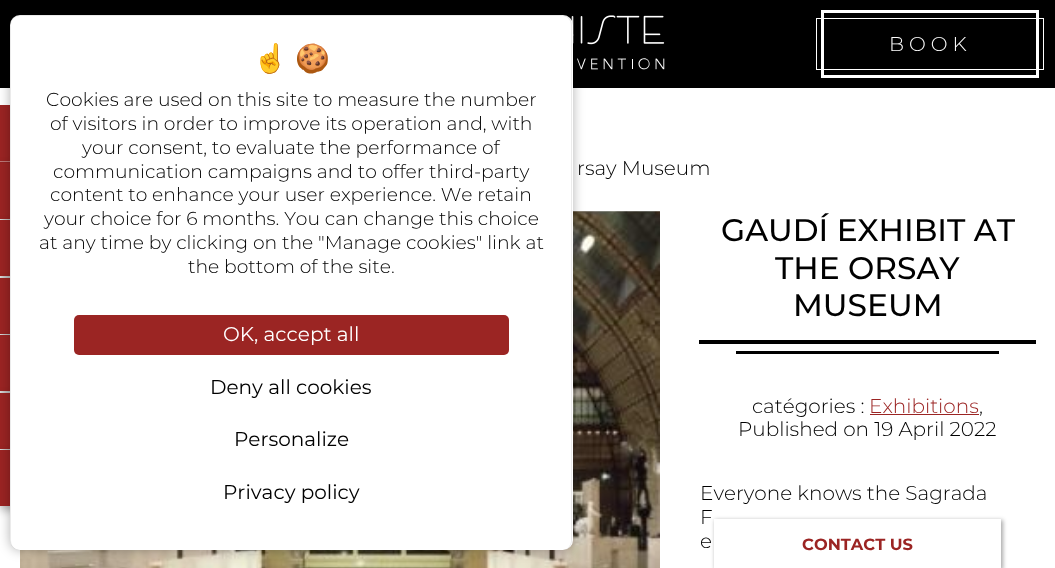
<svg xmlns="http://www.w3.org/2000/svg" xmlns:xlink="http://www.w3.org/1999/xlink" width="1055" height="568" viewBox="0 0 1055 568">
<style>*{font-kerning:none!important;font-variant-ligatures:none!important}</style>
<style>
.cls-1{font:28px Noto Color Emoji;fill:#000000}
.cls-2{font:300 18.75px Montserrat;fill:#000000}
.cls-3{font:20px Montserrat;fill:#ffffff}
.cls-4{font:20px Montserrat;fill:#000000}
.cls-5{font:300 20px Montserrat;letter-spacing:5px;fill:#ffffff}
.cls-6{font:300 20px Montserrat;fill:#000000}
.cls-7{font:500 31.25px Montserrat;fill:#000000}
.cls-8{font:300 20px Montserrat;fill:#9b2423}
.cls-9{font:bold 16.25px Montserrat;fill:#9b2423}
</style>
<defs>
<clipPath id="clip1"><path d="M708 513H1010V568H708ZM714 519H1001V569H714Z" clip-rule="evenodd"/></clipPath>
</defs>
<rect width="100%" height="100%" fill="#ffffff"/>
<rect fill="#9b2423" x="0" y="105" width="10" height="58"/>
<rect fill="#c37c7b" x="0" y="161" width="10" height="1"/>
<image xlink:href="image1.png" x="20" y="211" width="640" height="357"/>
<rect fill="#000000" fill-opacity="0.29" filter="blur(4px)" x="0" y="166" width="56" height="57"/>
<rect fill="#9b2423" x="0" y="163" width="10" height="56"/>
<rect fill="#000000" fill-opacity="0.29" filter="blur(4px)" x="0" y="224" width="56" height="56"/>
<rect fill="#9b2423" x="0" y="220" width="10" height="56"/>
<rect fill="#000000" fill-opacity="0.29" filter="blur(4px)" x="0" y="281" width="56" height="57"/>
<rect fill="#9b2423" x="0" y="278" width="10" height="56"/>
<rect fill="#000000" fill-opacity="0.29" filter="blur(4px)" x="0" y="339" width="56" height="56"/>
<rect fill="#9b2423" x="0" y="335" width="10" height="56"/>
<rect fill="#000000" fill-opacity="0.29" filter="blur(4px)" x="0" y="396" width="56" height="57"/>
<rect fill="#9b2423" x="0" y="393" width="10" height="56"/>
<rect fill="#000000" fill-opacity="0.29" filter="blur(4px)" x="0" y="454" width="56" height="56"/>
<rect fill="#9b2423" x="0" y="450" width="10" height="56"/>
<rect fill="#000000" x="0" y="0" width="1055" height="88"/>
<image xlink:href="image0.png" x="571" y="15" width="94" height="55"/>
<rect fill="#000000" fill-opacity="0.3" filter="blur(6px)" x="10" y="15" width="563" height="535" rx="10"/>
<rect fill="#ffffff" x="10" y="15" width="563" height="535" rx="10"/>
<path fill="#000000" fill-opacity="0.08" fill-rule="evenodd" d="M20 15H562C568 15 572 19 572 25V540C572 546 568 550 562 550H20C14 550 10 546 10 540V25C10 19 14 15 20 15ZM20 16H562C567 16 571 20 571 25V540C571 546 567 550 562 550H20C15 550 11 546 11 540V25C11 20 15 16 20 16Z"/>
<rect fill="#9b2523" x="74" y="315" width="435" height="40" rx="5"/>
<rect fill="none" stroke="#ffffff" stroke-width="3" x="822.5" y="11.5" width="215" height="65"/>
<rect fill="none" stroke="#ffffff" x="816.5" y="18.5" width="227" height="51"/>
<rect fill="#000000" x="699" y="340" width="337" height="4"/>
<rect fill="#000000" x="736" y="351" width="263" height="3"/>
<rect fill="#9b2423" x="870" y="414" width="109" height="1"/>
<g clip-path="url(#clip1)">
<rect fill="#000000" fill-opacity="0.34" filter="blur(2px)" x="715" y="520" width="288" height="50"/>
</g>
<text class="cls-1" x="253" y="68">☝️</text>
<text class="cls-1" x="295" y="68">🍪</text>
<text class="cls-2" x="46" y="106">Cookies are used on this site to measure the number</text>
<text class="cls-2" x="50" y="130">of visitors in order to improve its operation and, with</text>
<text class="cls-2" x="82" y="154">your consent, to evaluate the performance of</text>
<text class="cls-2" x="53" y="178">communication campaigns and to offer third-party</text>
<text class="cls-2" x="50" y="201">content to enhance your user experience. We retain</text>
<text class="cls-2" x="44" y="225">your choice for 6 months. You can change this choice</text>
<text class="cls-2" x="39" y="249">at any time by clicking on the "Manage cookies" link at</text>
<text class="cls-2" x="188" y="273">the bottom of the site.</text>
<text class="cls-3" x="223" y="341">OK, accept all</text>
<text class="cls-4" x="210" y="394">Deny all cookies</text>
<text class="cls-4" x="234" y="446">Personalize</text>
<text class="cls-4" x="223" y="499">Privacy policy</text>
<text class="cls-5" x="889" y="51">BOOK</text>
<text class="cls-6" x="577" y="175">rsay Museum</text>
<text class="cls-7" x="721" y="241">GAUDÍ EXHIBIT AT</text>
<text class="cls-7" x="775" y="279">THE ORSAY</text>
<text class="cls-7" x="793" y="316">MUSEUM</text>
<text class="cls-6" x="752" y="413">catégories :</text>
<text class="cls-8" x="869" y="413">Exhibitions</text>
<text class="cls-6" x="979" y="413">,</text>
<text class="cls-6" x="738" y="436">Published on 19 April 2022</text>
<text class="cls-6"><tspan x="700" y="500">Everyone knows the Sagrada</tspan><tspan x="700" y="524">F</tspan><tspan x="700" y="548">e</tspan></text>
<text class="cls-9" x="802" y="550">CONTACT US</text>
</svg>
